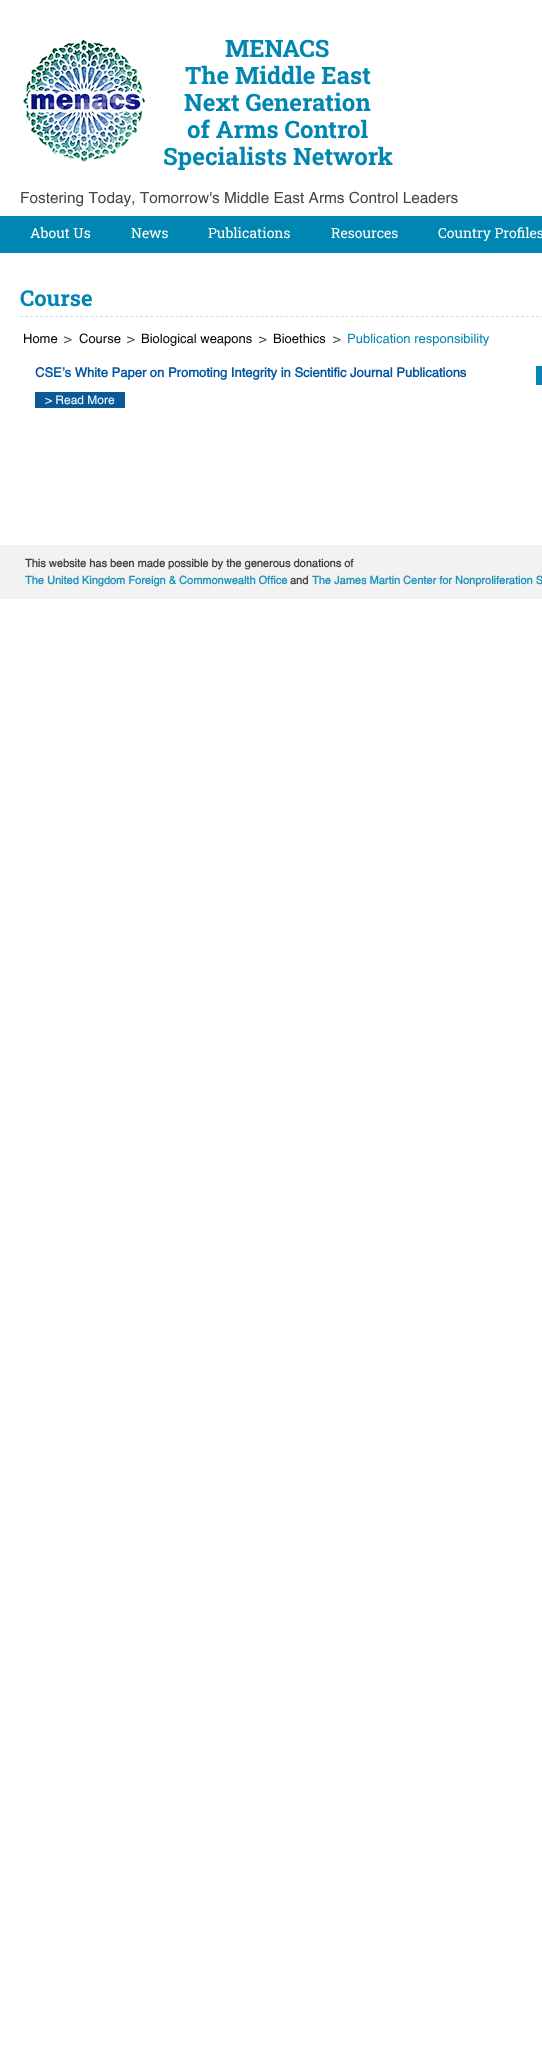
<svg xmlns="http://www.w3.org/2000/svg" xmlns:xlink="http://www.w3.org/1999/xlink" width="542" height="2047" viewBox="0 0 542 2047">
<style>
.cls-1{font:bold 24px Roboto Slab;fill:#0086b2}
.cls-2{font:15.4px Helvetica;fill:#444444}
.cls-3{font:14px Roboto Slab;fill:#ffffff}
.cls-4{font:bold 22px Roboto Slab;fill:#0086b2}
.cls-5{font:13px Helvetica;fill:#000000}
.cls-6{font:13px Helvetica;fill:#444444}
.cls-7{font:13px Helvetica;fill:#0086b2}
.cls-8{font:bold 13px Helvetica;fill:#0055a2}
.cls-9{font:12px Helvetica;fill:#ffffff}
.cls-10{font:bold 11px Helvetica;fill:#444444}
.cls-11{font:bold 11px Helvetica;fill:#1e94bb}
</style>
<rect width="100%" height="100%" fill="#ffffff"/>
<image xlink:href="image0.png" x="23" y="40" width="123" height="122"/>
<rect fill="#0086b2" x="0" y="216" width="542" height="37"/>
<path fill="none" stroke="#dcdcdc" stroke-dasharray="3 2.01" d="M20 316.5H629"/>
<rect fill="#0086b6" x="536" y="366" width="6" height="19"/>
<rect fill="#095b97" x="35" y="392" width="90" height="16"/>
<rect fill="#f2f2f2" x="0" y="545" width="542" height="54"/>
<text class="cls-1" x="225" y="57">MENACS</text>
<text class="cls-1" x="185" y="84">The Middle East</text>
<text class="cls-1" x="184" y="111">Next Generation</text>
<text class="cls-1" x="187" y="138">of Arms Control</text>
<text class="cls-1" x="163" y="165">Specialists Network</text>
<text class="cls-2" x="20" y="203">Fostering Today, Tomorrow's Middle East Arms Control Leaders</text>
<text class="cls-3" x="30" y="238">About Us</text>
<text class="cls-3" x="131" y="238">News</text>
<text class="cls-3" x="208" y="238">Publications</text>
<text class="cls-3" x="331" y="238">Resources</text>
<text class="cls-3" x="438" y="238">Country Profiles</text>
<text class="cls-4" x="20" y="306">Course</text>
<text class="cls-5" x="23" y="343">Home</text>
<text class="cls-6" x="64" y="343">&gt;</text>
<text class="cls-5" x="79" y="343">Course</text>
<text class="cls-6" x="127" y="343">&gt;</text>
<text class="cls-5" x="141" y="343">Biological weapons</text>
<text class="cls-6" x="259" y="343">&gt;</text>
<text class="cls-5" x="273" y="343">Bioethics</text>
<text class="cls-6" x="333" y="343">&gt;</text>
<text class="cls-7" x="347" y="343">Publication responsibility</text>
<text class="cls-8" x="35" y="377">CSE’s White Paper on Promoting Integrity in Scientific Journal Publications</text>
<text class="cls-9" x="45" y="404">&gt; Read More</text>
<text class="cls-10" x="25" y="567">This website has been made possible by the generous donations of</text>
<text class="cls-11" x="25" y="584">The United Kingdom Foreign &amp; Commonwealth Office</text>
<text class="cls-10" x="290" y="584">and</text>
<text class="cls-11" x="312" y="584">The James Martin Center for Nonproliferation S</text>
</svg>
